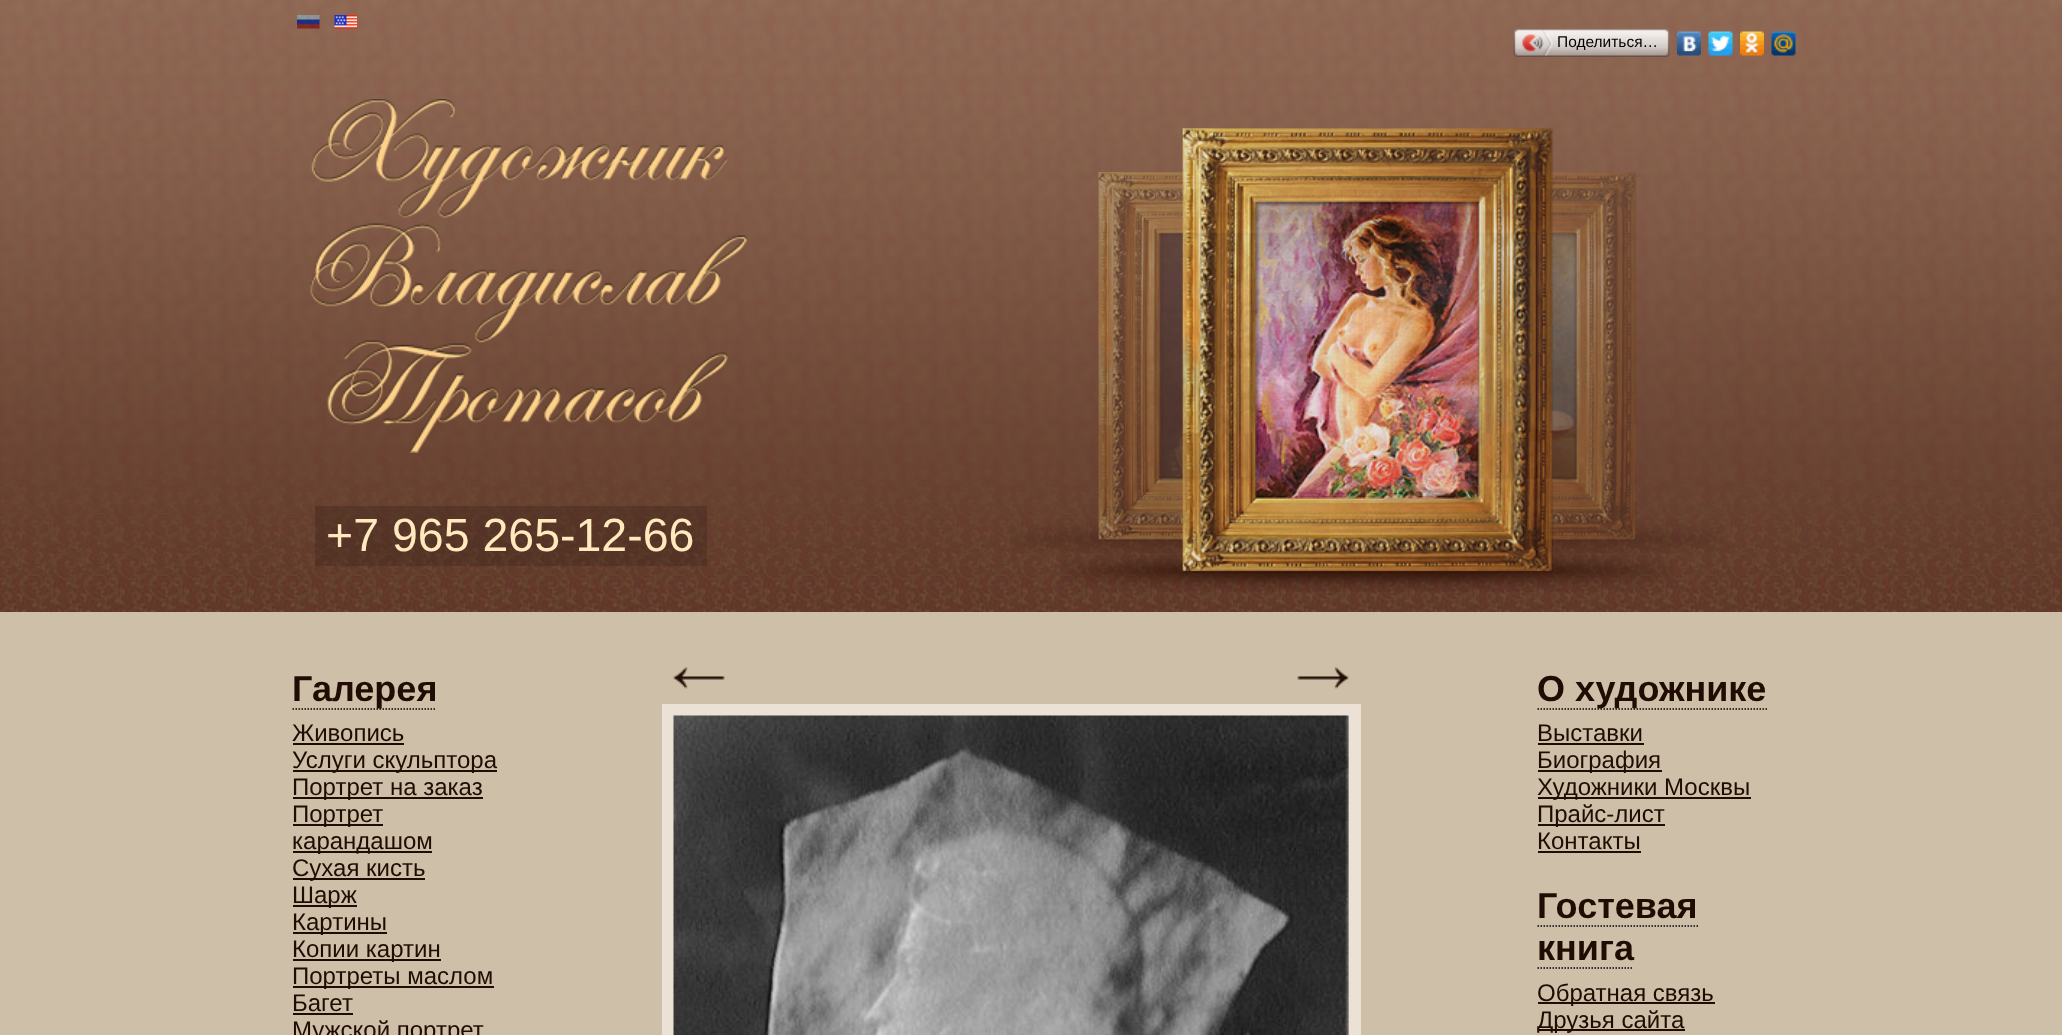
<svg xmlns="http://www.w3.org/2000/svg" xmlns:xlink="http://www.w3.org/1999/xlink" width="2062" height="1035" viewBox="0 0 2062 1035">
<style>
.cls-1{font:15.5px Liberation Sans;fill:#000000}
.cls-2{font:46.5px Liberation Sans;fill:#ffe9bd}
.cls-3{font:bold 36px Liberation Sans;fill:#200c02}
.cls-4{font:24px Liberation Sans;fill:#200c02}
</style>
<rect width="100%" height="100%" fill="#cebfa8"/>
<image xlink:href="image0.png" x="0" y="0" width="2062" height="612"/>
<image xlink:href="image1.png" x="297" y="15" width="23" height="14"/>
<image xlink:href="image2.png" x="334" y="15" width="23" height="14"/>
<image xlink:href="image3.png" x="1518" y="28" width="147" height="29"/>
<image xlink:href="image4.png" x="1513" y="28" width="5" height="29"/>
<image xlink:href="image5.png" x="1522" y="30" width="31" height="26"/>
<image xlink:href="image6.png" x="1665" y="28" width="5" height="29"/>
<image xlink:href="image7.png" x="1677" y="31" width="24" height="25"/>
<image xlink:href="image8.png" x="1708" y="31" width="25" height="25"/>
<image xlink:href="image9.png" x="1740" y="31" width="24" height="25"/>
<image xlink:href="image10.png" x="1771" y="31" width="25" height="25"/>
<image xlink:href="image11.png" x="310" y="99" width="437" height="354"/>
<rect fill="#000000" fill-opacity="0.15" x="315" y="506" width="392" height="60"/>
<image xlink:href="image14.png" x="1241" y="172" width="482" height="381"/>
<image xlink:href="image13.png" x="1010" y="172" width="485" height="381"/>
<image xlink:href="image12.png" x="1060" y="128" width="613" height="464"/>
<path fill="none" stroke="#000000" stroke-width="1.5" stroke-dasharray="1.5 1.5" d="M292.5 709H436.5"/>
<rect fill="#200c02" x="293" y="743" width="111" height="2"/>
<rect fill="#200c02" x="293" y="770" width="204" height="2"/>
<rect fill="#200c02" x="293" y="797" width="190" height="2"/>
<rect fill="#200c02" x="293" y="824" width="90" height="2"/>
<rect fill="#200c02" x="293" y="851" width="139" height="2"/>
<rect fill="#200c02" x="293" y="878" width="132" height="2"/>
<rect fill="#200c02" x="293" y="905" width="64" height="2"/>
<rect fill="#200c02" x="293" y="932" width="94" height="2"/>
<rect fill="#200c02" x="293" y="959" width="148" height="2"/>
<rect fill="#200c02" x="293" y="986" width="201" height="2"/>
<rect fill="#200c02" x="293" y="1013" width="60" height="2"/>
<image xlink:href="image15.png" x="673" y="667" width="52" height="22"/>
<image xlink:href="image16.png" x="1297" y="667" width="52" height="22"/>
<rect fill="none" stroke="#ebe2d5" stroke-width="12" x="668" y="710" width="687" height="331"/>
<image xlink:href="image17.png" x="673" y="715" width="676" height="320"/>
<path fill="none" stroke="#000000" stroke-width="1.5" stroke-dasharray="1.5 1.5" d="M1537.5 709H1767"/>
<rect fill="#200c02" x="1538" y="743" width="106" height="2"/>
<rect fill="#200c02" x="1538" y="770" width="124" height="2"/>
<rect fill="#200c02" x="1538" y="797" width="213" height="2"/>
<rect fill="#200c02" x="1538" y="824" width="127" height="2"/>
<rect fill="#200c02" x="1538" y="851" width="103" height="2"/>
<path fill="none" stroke="#000000" stroke-width="1.5" stroke-dasharray="1.5 1.5" d="M1537.5 926H1698"/>
<path fill="none" stroke="#000000" stroke-width="1.5" stroke-dasharray="1.5 1.5" d="M1537.5 968H1633.5"/>
<rect fill="#200c02" x="1538" y="1002" width="177" height="2"/>
<rect fill="#200c02" x="1538" y="1029" width="147" height="2"/>
<text class="cls-1" x="1557" y="47">Поделиться…</text>
<text class="cls-2" x="326" y="551">+7 965 265-12-66</text>
<text class="cls-3" x="292" y="701">Галерея</text>
<text class="cls-4"><tspan x="292" y="741">Живопись</tspan><tspan x="292" y="768">Услуги скульптора</tspan><tspan x="292" y="795">Портрет на заказ</tspan><tspan x="292" y="822">Портрет</tspan><tspan x="292" y="849">карандашом</tspan><tspan x="292" y="876">Сухая кисть</tspan><tspan x="292" y="903">Шарж</tspan><tspan x="292" y="930">Картины</tspan><tspan x="292" y="957">Копии картин</tspan><tspan x="292" y="984">Портреты маслом</tspan><tspan x="292" y="1011">Багет</tspan><tspan x="292" y="1038">Мужской портрет</tspan></text>
<text class="cls-3" x="1537" y="701">О художнике</text>
<text class="cls-4"><tspan x="1537" y="741">Выставки</tspan><tspan x="1537" y="768">Биография</tspan><tspan x="1537" y="795">Художники Москвы</tspan><tspan x="1537" y="822">Прайс-лист</tspan><tspan x="1537" y="849">Контакты</tspan></text>
<text class="cls-3"><tspan x="1537" y="918">Гостевая</tspan><tspan x="1537" y="960">книга</tspan></text>
<text class="cls-4"><tspan x="1537" y="1001">Обратная связь</tspan><tspan x="1537" y="1028">Друзья сайта</tspan></text>
</svg>
